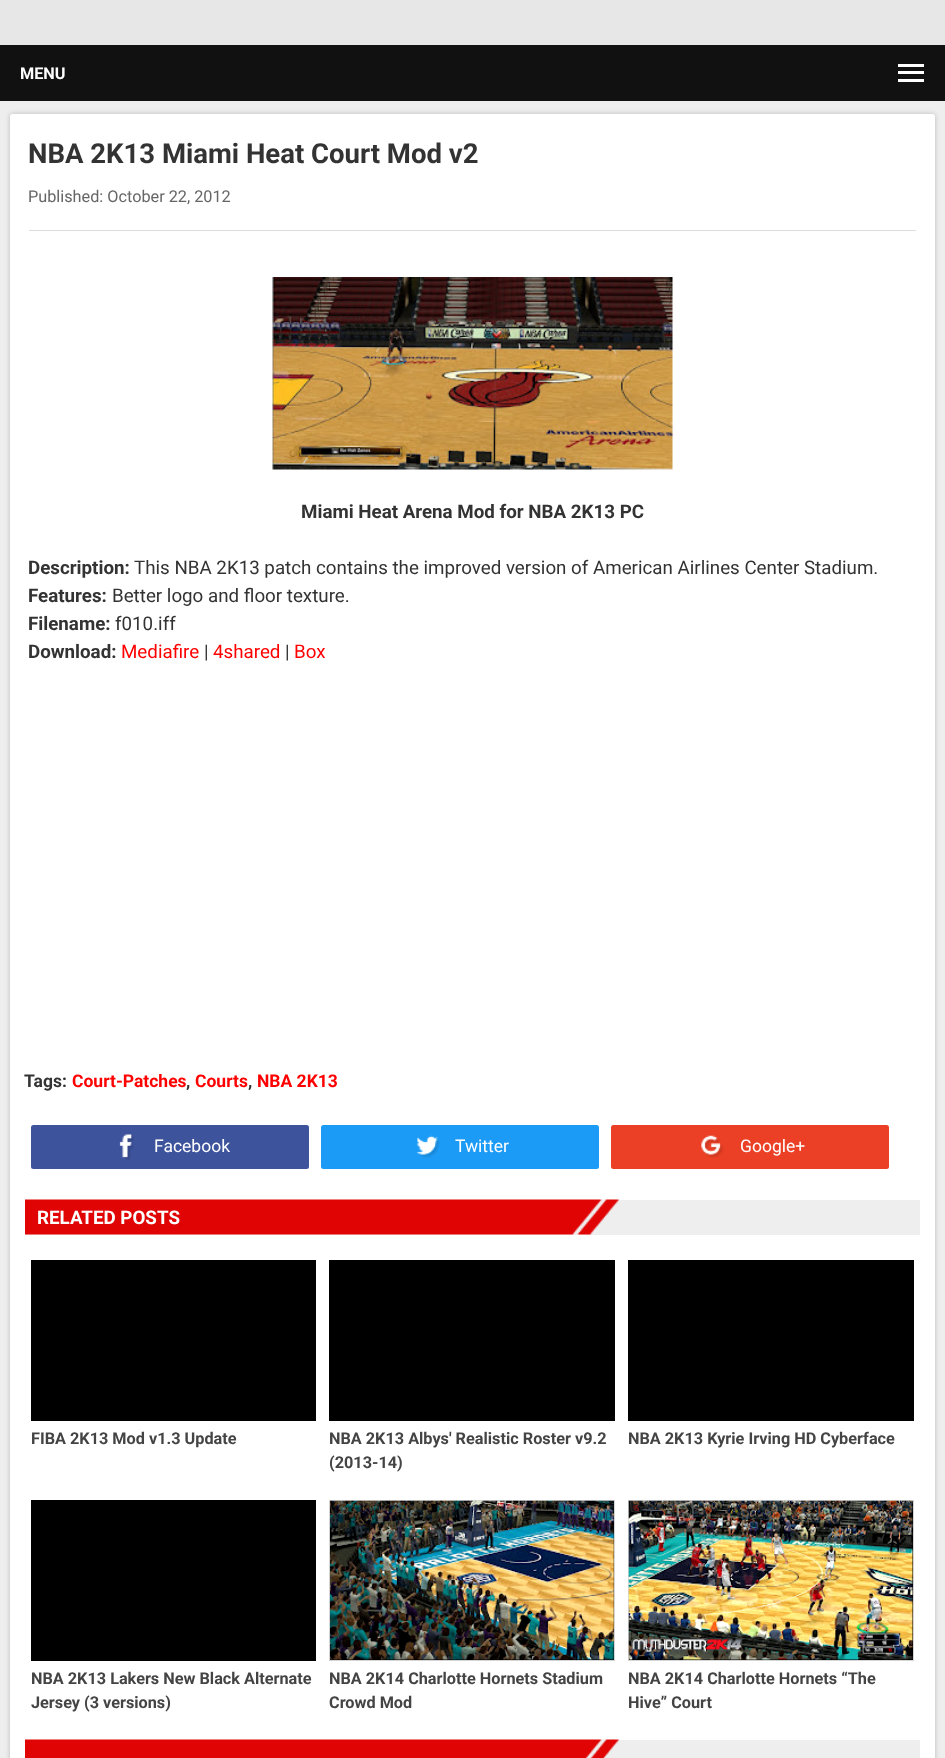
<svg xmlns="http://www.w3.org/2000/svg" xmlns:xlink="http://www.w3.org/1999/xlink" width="945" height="1758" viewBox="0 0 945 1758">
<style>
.cls-1{font:bold 16.25px Roboto;fill:#ffffff}
.cls-2{font:bold 27.5px Roboto;fill:#333333}
.cls-3{font:16.25px Roboto;fill:#666666}
.cls-4{font:bold 18.75px Roboto;fill:#333333}
.cls-5{font:18.75px Roboto;fill:#333333}
.cls-6{font:18.75px Roboto;fill:#ff0000}
.cls-7{font:bold 17.5px Roboto;fill:#333333}
.cls-8{font:bold 17.5px Roboto;fill:#ff0000}
.cls-9{font:17.5px Roboto;fill:#ffffff}
.cls-10{font:bold 18.75px Roboto;fill:#ffffff}
.cls-11{font:bold 16.25px Roboto;fill:#444444}
</style>
<defs>
<linearGradient id="g1" gradientUnits="userSpaceOnUse" x1="473" y1="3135" x2="473" y2="114"><stop offset="0" stop-color="#f1f1f1"/><stop offset="0.25" stop-color="#ffffff"/></linearGradient>
</defs>
<rect width="100%" height="100%" fill="#eeeeee"/>
<rect fill="#e7e7e7" x="0" y="0" width="945" height="45"/>
<rect fill="#111111" x="0" y="45" width="945" height="56"/>
<rect fill="#ffffff" x="898" y="64" width="26" height="3"/>
<rect fill="#ffffff" x="898" y="71" width="26" height="3"/>
<rect fill="#ffffff" x="898" y="79" width="26" height="3"/>
<rect fill="#bbbbbb" filter="blur(2.5px)" x="10" y="114" width="925" height="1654" rx="2.5"/>
<rect fill="url(#g1)" x="10" y="114" width="925" height="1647" rx="2.5"/>
<rect fill="#dddddd" x="29" y="230" width="887" height="1"/>
<image xlink:href="image0.png" x="272" y="277" width="401" height="193"/>
<rect fill="#3d539c" x="31" y="1125" width="278" height="44" rx="2.5"/>
<image xlink:href="image1.png" x="119" y="1134" width="15" height="26"/>
<rect fill="#1c9bf6" x="321" y="1125" width="278" height="44" rx="2.5"/>
<image xlink:href="image2.png" x="416" y="1135" width="24" height="23"/>
<rect fill="#eb4026" x="611" y="1125" width="278" height="44" rx="2.5"/>
<image xlink:href="image3.png" x="701" y="1135" width="23" height="23"/>
<rect fill="#eeeeee" x="25" y="1200" width="895" height="35"/>
<image xlink:href="image4.png" x="25" y="1199" width="595" height="36"/>
<rect fill="#000000" x="31" y="1260" width="285" height="161"/>
<rect fill="#000000" x="329" y="1260" width="286" height="161"/>
<rect fill="#000000" x="628" y="1260" width="286" height="161"/>
<rect fill="#000000" x="31" y="1500" width="285" height="161"/>
<rect fill="#000000" stroke="#d4d4d4" x="329.5" y="1500.5" width="285" height="160"/>
<image xlink:href="image5.png" x="330" y="1500" width="284" height="160"/>
<rect fill="#000000" stroke="#d4d4d4" x="628.5" y="1500.5" width="285" height="160"/>
<image xlink:href="image6.png" x="628" y="1500" width="285" height="160"/>
<rect fill="#eeeeee" x="620" y="1740" width="300" height="18"/>
<image xlink:href="image7.png" x="25" y="1739" width="595" height="19"/>
<text class="cls-1" x="20" y="79">MENU</text>
<text class="cls-2" x="28" y="163">NBA 2K13 Miami Heat Court Mod v2</text>
<text class="cls-3" x="28" y="202">Published: October 22, 2012</text>
<text class="cls-4" x="301" y="518">Miami Heat Arena Mod for NBA 2K13 PC</text>
<text class="cls-4" x="28" y="574">Description:</text>
<text class="cls-5" x="134" y="574">This NBA 2K13 patch contains the improved version of American Airlines Center Stadium.</text>
<text class="cls-4" x="28" y="602">Features:</text>
<text class="cls-5" x="112" y="602">Better logo and floor texture.</text>
<text class="cls-4" x="28" y="630">Filename:</text>
<text class="cls-5" x="115" y="630">f010.iff</text>
<text class="cls-4" x="28" y="658">Download:</text>
<text class="cls-6" x="121" y="658">Mediafire</text>
<text class="cls-5" x="204" y="658">|</text>
<text class="cls-6" x="213" y="658">4shared</text>
<text class="cls-5" x="285" y="658">|</text>
<text class="cls-6" x="294" y="658">Box</text>
<text class="cls-7" x="24" y="1087">Tags:</text>
<text class="cls-8" x="72" y="1087">Court-Patches</text>
<text class="cls-7" x="186" y="1087">,</text>
<text class="cls-8" x="195" y="1087">Courts</text>
<text class="cls-7" x="248" y="1087">,</text>
<text class="cls-8" x="257" y="1087">NBA 2K13</text>
<text class="cls-9" x="154" y="1152">Facebook</text>
<text class="cls-9" x="455" y="1152">Twitter</text>
<text class="cls-9" x="740" y="1152">Google+</text>
<text class="cls-10" x="37" y="1224">RELATED POSTS</text>
<text class="cls-11" x="31" y="1444">FIBA 2K13 Mod v1.3 Update</text>
<text class="cls-11"><tspan x="329" y="1444">NBA 2K13 Albys' Realistic Roster v9.2</tspan><tspan x="329" y="1468">(2013-14)</tspan></text>
<text class="cls-11" x="628" y="1444">NBA 2K13 Kyrie Irving HD Cyberface</text>
<text class="cls-11"><tspan x="31" y="1684">NBA 2K13 Lakers New Black Alternate</tspan><tspan x="31" y="1708">Jersey (3 versions)</tspan></text>
<text class="cls-11"><tspan x="329" y="1684">NBA 2K14 Charlotte Hornets Stadium</tspan><tspan x="329" y="1708">Crowd Mod</tspan></text>
<text class="cls-11"><tspan x="628" y="1684">NBA 2K14 Charlotte Hornets “The</tspan><tspan x="628" y="1708">Hive” Court</tspan></text>
</svg>
